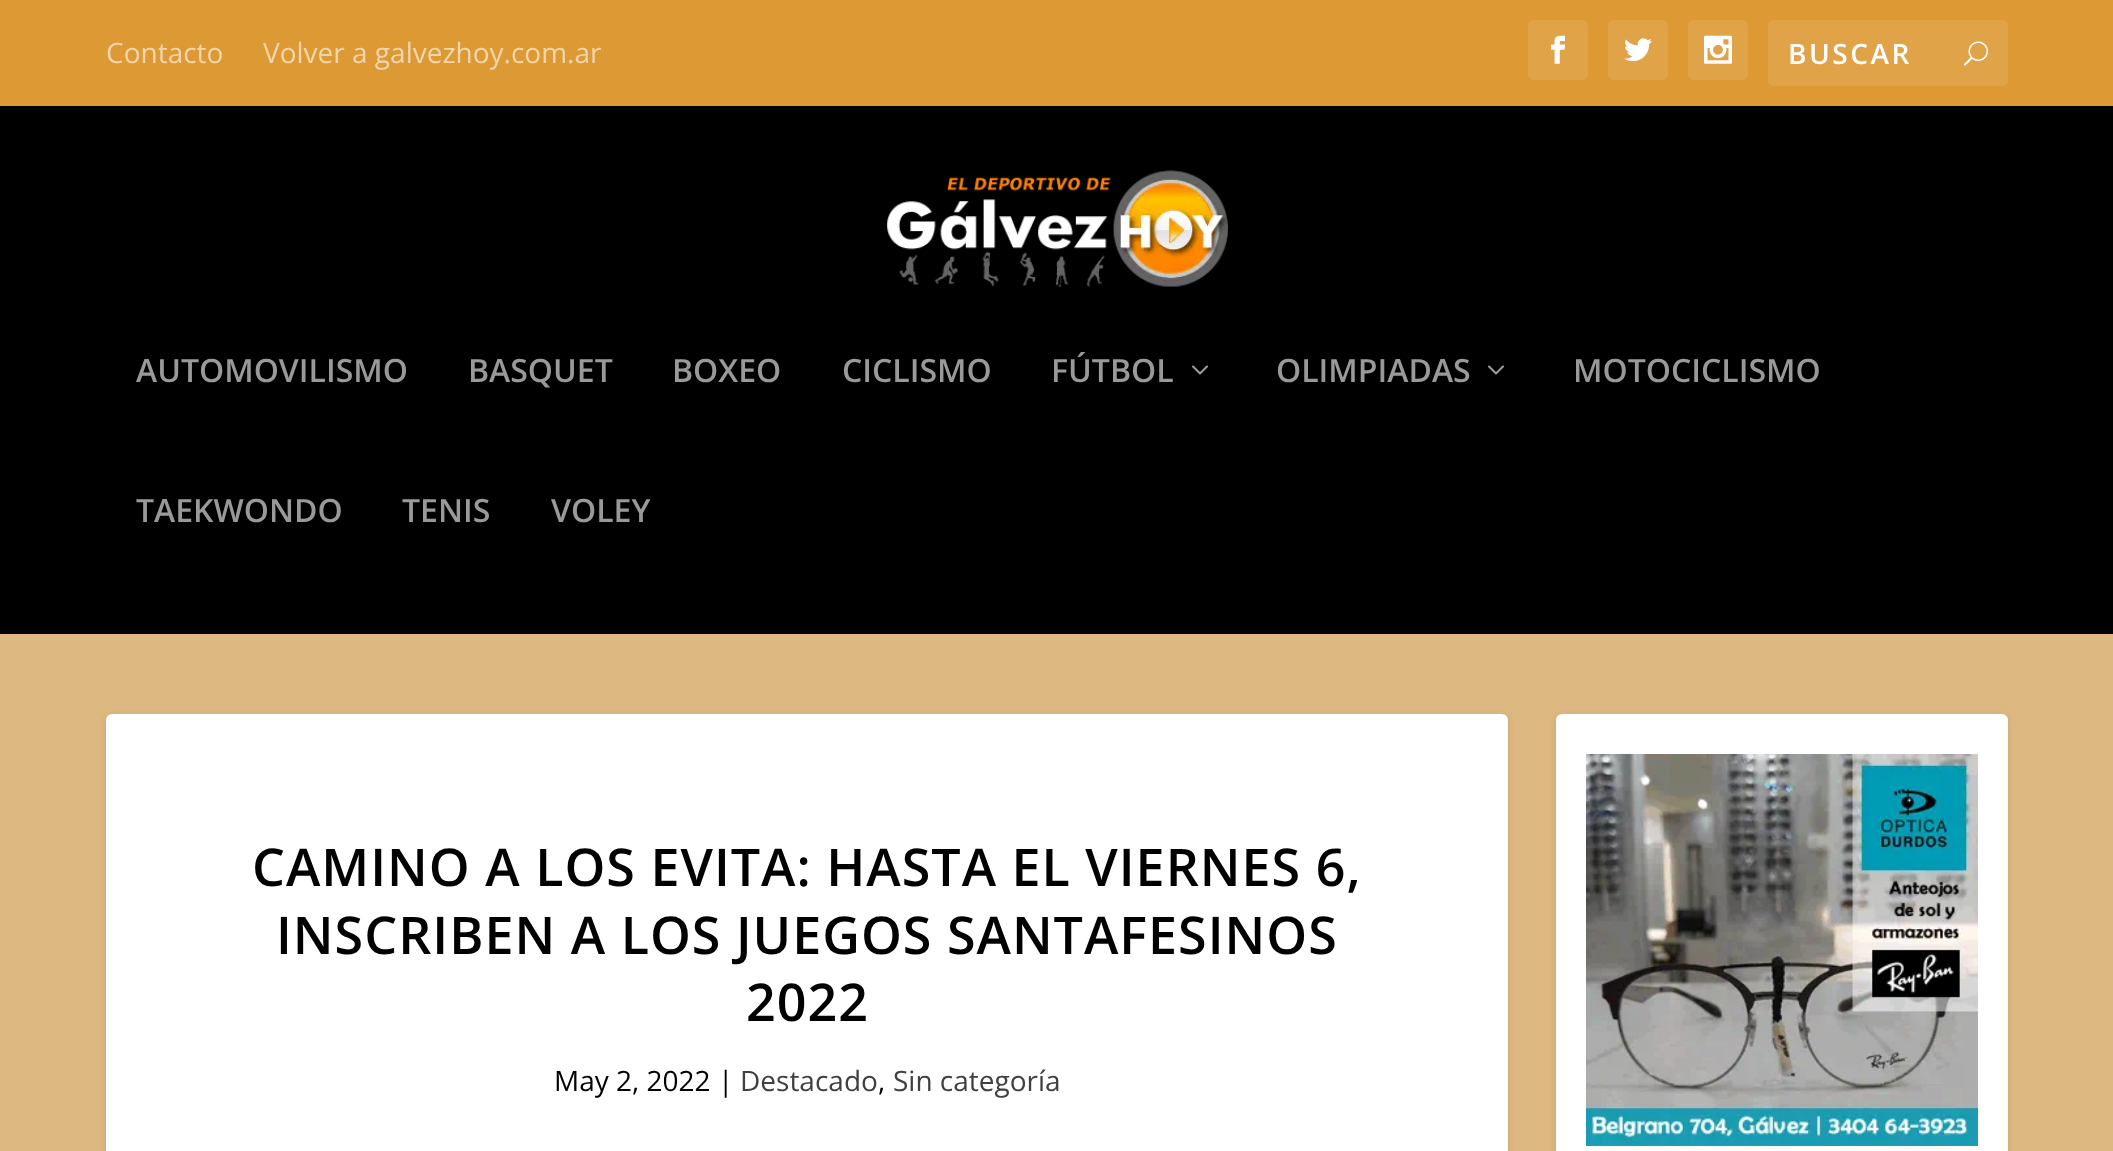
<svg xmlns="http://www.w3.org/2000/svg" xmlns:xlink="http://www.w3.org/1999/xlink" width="2113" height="1151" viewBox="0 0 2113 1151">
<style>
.cls-1{font:28px Open Sans;fill:#f1d6ad}
.cls-2{font:600 28px Open Sans;letter-spacing:2.5px;fill:#ffffff}
.cls-3{font:600 32px Open Sans;fill:#999999}
.cls-4{font:600 52px Open Sans;letter-spacing:1px;fill:#000000}
.cls-5{font:28px Open Sans;fill:#000000}
.cls-6{font:28px Open Sans;fill:#404040}
</style>
<rect width="100%" height="100%" fill="#ddb880"/>
<rect fill="#dd9933" x="0" y="0" width="2113" height="106"/>
<rect fill="#e0a347" x="1528" y="20" width="60" height="60" rx="6"/>
<image xlink:href="image0.png" x="1551" y="35" width="15" height="29"/>
<rect fill="#e0a347" x="1608" y="20" width="60" height="60" rx="6"/>
<image xlink:href="image1.png" x="1624" y="38" width="28" height="24"/>
<rect fill="#e0a347" x="1688" y="20" width="60" height="60" rx="6"/>
<image xlink:href="image2.png" x="1704" y="35" width="28" height="29"/>
<rect fill="#e0a347" x="1768" y="20" width="240" height="66" rx="6"/>
<image xlink:href="image3.png" x="1963" y="41" width="25" height="25"/>
<rect fill="#000000" x="0" y="106" width="2113" height="528"/>
<image xlink:href="image4.png" x="887" y="170" width="341" height="117"/>
<image xlink:href="image5.png" x="1192" y="365" width="16" height="10"/>
<image xlink:href="image5.png" x="1488" y="365" width="16" height="10"/>
<rect fill="#000000" fill-opacity="0.1" filter="blur(3px)" x="106" y="716" width="1402" height="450" rx="6"/>
<rect fill="#ffffff" x="106" y="714" width="1402" height="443" rx="6"/>
<rect fill="#000000" fill-opacity="0.1" filter="blur(3px)" x="1556" y="716" width="452" height="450" rx="6"/>
<rect fill="#ffffff" x="1556" y="714" width="452" height="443" rx="6"/>
<image xlink:href="image6.png" x="1586" y="754" width="392" height="392"/>
<text class="cls-1" x="106" y="63">Contacto</text>
<text class="cls-1" x="263" y="63">Volver a galvezhoy.com.ar</text>
<text class="cls-2" x="1788" y="64">BUSCAR</text>
<text class="cls-3" x="136" y="382">AUTOMOVILISMO</text>
<text class="cls-3" x="468" y="382">BASQUET</text>
<text class="cls-3" x="672" y="382">BOXEO</text>
<text class="cls-3" x="842" y="382">CICLISMO</text>
<text class="cls-3" x="1051" y="382">FÚTBOL</text>
<text class="cls-3" x="1276" y="382">OLIMPIADAS</text>
<text class="cls-3" x="1573" y="382">MOTOCICLISMO</text>
<text class="cls-3" x="136" y="522">TAEKWONDO</text>
<text class="cls-3" x="402" y="522">TENIS</text>
<text class="cls-3" x="551" y="522">VOLEY</text>
<text class="cls-4" x="252" y="886">CAMINO A LOS EVITA: HASTA EL VIERNES 6,</text>
<text class="cls-4" x="276" y="954">INSCRIBEN A LOS JUEGOS SANTAFESINOS</text>
<text class="cls-4" x="746" y="1021">2022</text>
<text class="cls-5" x="554" y="1091">May 2, 2022 |</text>
<text class="cls-6" x="740" y="1091">Destacado</text>
<text class="cls-5" x="878" y="1091">,</text>
<text class="cls-6" x="893" y="1091">Sin categoría</text>
</svg>
